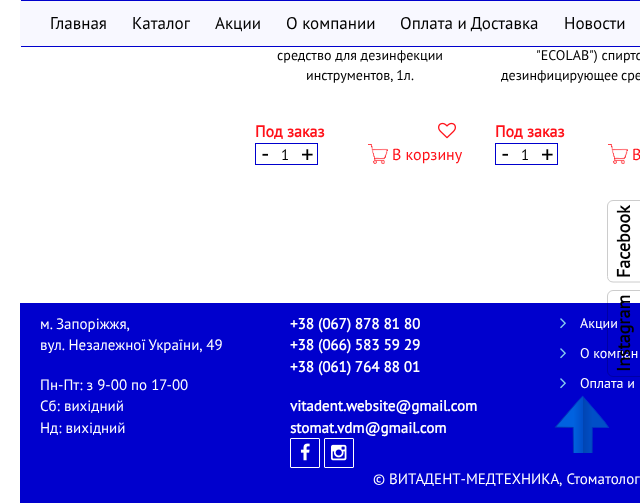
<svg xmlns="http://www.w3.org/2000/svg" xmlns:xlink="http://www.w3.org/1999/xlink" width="640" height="503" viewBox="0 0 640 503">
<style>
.cls-1{font:17px PT Sans;fill:#000000}
.cls-2{font:14px PT Sans;fill:#000000}
.cls-3{font:bold 16px PT Sans;fill:#ff1119}
.cls-4{font:25px PT Sans;fill:#000000}
.cls-5{font:15px PT Sans;fill:#000000}
.cls-6{font:16px PT Sans;fill:#ff1119}
.cls-7{font:bold 18px PT Sans;fill:#000000}
.cls-8{font:15px PT Sans;fill:#ffffff}
.cls-9{font:bold 15px PT Sans;fill:#ffffff}
.cls-10{font:14px PT Sans;fill:#ffffff}
</style>
<rect width="100%" height="100%" fill="#ffffff"/>
<rect fill="#f8f8ff" x="20" y="0" width="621" height="47" rx="1"/>
<rect fill="#0000cd" x="21" y="0" width="619" height="1"/>
<rect fill="#0000cd" x="21" y="46" width="619" height="1"/>
<image xlink:href="image0.png" x="438" y="122" width="18" height="17"/>
<rect fill="none" stroke="#0000cd" x="255.5" y="143.5" width="62" height="21"/>
<image xlink:href="image1.png" x="368" y="144" width="20" height="20"/>
<rect fill="none" stroke="#0000cd" x="495.5" y="143.5" width="62" height="21"/>
<image xlink:href="image2.png" x="608" y="144" width="20" height="20"/>
<path fill="none" stroke="#cccccc" d="M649 282H613C610 282 607.5 280 607.5 276.5V206C607.5 203 610 200.5 613 200.5H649C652 200.5 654.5 203 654.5 206V276.5C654.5 280 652 282 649 282Z"/>
<rect fill="#0000cd" x="20" y="303" width="620" height="200"/>
<rect fill="none" stroke="#ffffff" x="290.5" y="438.5" width="29" height="29" rx="0.5"/>
<image xlink:href="image3.png" x="300" y="443" width="10" height="18"/>
<rect fill="none" stroke="#ffffff" x="324.5" y="438.5" width="29" height="29" rx="0.5"/>
<image xlink:href="image4.png" x="331" y="444" width="16" height="17"/>
<image xlink:href="image5.png" x="560" y="318" width="6" height="11"/>
<image xlink:href="image5.png" x="560" y="348" width="6" height="11"/>
<image xlink:href="image5.png" x="560" y="378" width="6" height="11"/>
<image xlink:href="image6.png" x="554" y="395" width="56" height="58"/>
<text class="cls-1" x="50" y="29">Главная</text>
<text class="cls-1" x="132" y="29">Каталог</text>
<text class="cls-1" x="215" y="29">Акции</text>
<text class="cls-1" x="286" y="29">О компании</text>
<text class="cls-1" x="400" y="29">Оплата и Доставка</text>
<text class="cls-1" x="564" y="29">Новости</text>
<text class="cls-2" x="277" y="60">средство для дезинфекции</text>
<text class="cls-2" x="306" y="80" word-spacing="-1">инструментов, 1л.</text>
<text class="cls-3" x="255" y="137">Под заказ</text>
<text class="cls-4" x="261" y="162">-</text>
<rect fill="#ffffff" x="268" y="153" width="1" height="3"/>
<text class="cls-5" x="281" y="160">1</text>
<text class="cls-4" x="301" y="163">+</text>
<text class="cls-6" x="392" y="160">В корзину</text>
<text class="cls-2" x="536" y="60">"ECOLAB") спирто</text>
<text class="cls-2" x="501" y="80" word-spacing="-1">дезинфицирующее сре</text>
<text class="cls-3" x="495" y="137">Под заказ</text>
<text class="cls-4" x="501" y="162">-</text>
<rect fill="#ffffff" x="508" y="153" width="1" height="3"/>
<text class="cls-5" x="521" y="160">1</text>
<text class="cls-4" x="541" y="163">+</text>
<text class="cls-6" x="632" y="160">В</text>
<text class="cls-7" x="630" y="278" transform="rotate(-90 630 278)">Facebook</text>
<text class="cls-8"><tspan x="40" y="329" word-spacing="-1">м. Запоріжжя,</tspan><tspan x="40" y="350" word-spacing="-0.5">вул. Незалежної України, 49</tspan></text>
<text class="cls-8"><tspan x="40" y="390">Пн-Пт: з 9-00 по 17-00</tspan><tspan x="40" y="411">Сб: вихідний</tspan><tspan x="40" y="433">Нд: вихідний</tspan></text>
<text class="cls-9"><tspan x="290" y="329">+38 (067) 878 81 80</tspan><tspan x="290" y="350">+38 (066) 583 59 29</tspan><tspan x="290" y="372">+38 (061) 764 88 01</tspan></text>
<text class="cls-9"><tspan x="290" y="411">vitadent.website@gmail.com</tspan><tspan x="290" y="433">stomat.vdm@gmail.com</tspan></text>
<text class="cls-10" x="580" y="328">Акции</text>
<text class="cls-10" x="580" y="358">О компан</text>
<path fill="none" stroke="#000000" stroke-opacity="0.2" d="M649 376.5H613C610 376.5 607.5 374 607.5 371V296C607.5 293 610 290.5 613 290.5H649C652 290.5 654.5 293 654.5 296V371C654.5 374 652 376.5 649 376.5Z"/>
<text class="cls-7" x="630" y="372" transform="rotate(-90 630 372)">Instagram</text>
<text class="cls-10" x="580" y="388">Оплата и</text>
<text class="cls-8" x="373" y="484">© ВИТАДЕНТ-МЕДТЕХНИКА</text>
<text class="cls-8" x="559" y="484">, Стоматолог</text>
</svg>
